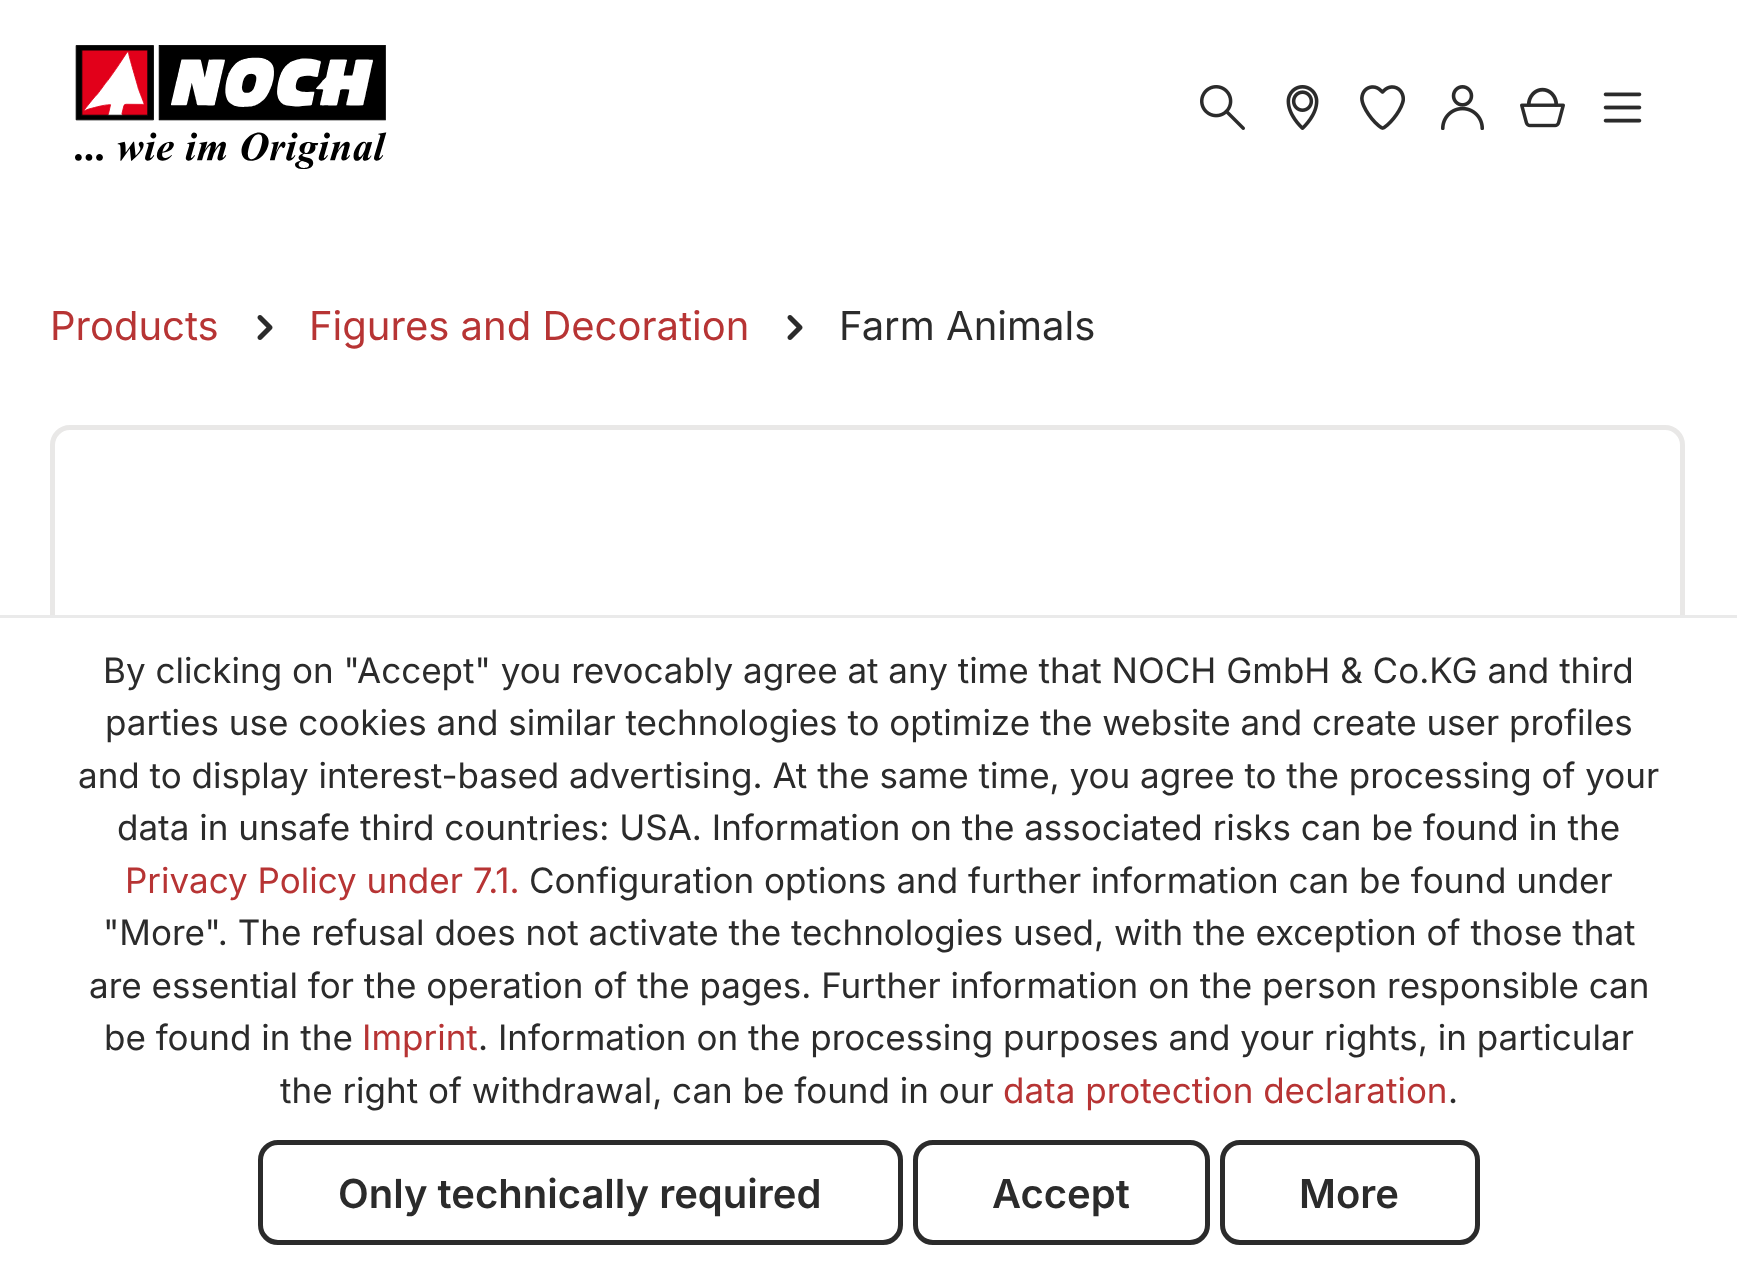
<svg xmlns="http://www.w3.org/2000/svg" xmlns:xlink="http://www.w3.org/1999/xlink" width="1737" height="1268" viewBox="0 0 1737 1268">
<style>
.cls-1{font:40px Inter;fill:#b73434}
.cls-2{font:40px Inter;fill:#2b2b2b}
.cls-3{font:35px Inter;fill:#2b2b2b}
.cls-4{font:35px Inter;fill:#b73434}
.cls-5{font:600 40px Inter;fill:#2b2b2b}
</style>
<rect width="100%" height="100%" fill="#ffffff"/>
<image xlink:href="image0.png" x="75" y="45" width="312" height="124"/>
<image xlink:href="image1.png" x="1200" y="85" width="45" height="45"/>
<image xlink:href="image2.png" x="1286" y="85" width="33" height="45"/>
<image xlink:href="image3.png" x="1360" y="85" width="45" height="45"/>
<image xlink:href="image4.png" x="1441" y="85" width="43" height="45"/>
<image xlink:href="image5.png" x="1520" y="87" width="45" height="41"/>
<image xlink:href="image6.png" x="1603" y="92" width="39" height="31"/>
<image xlink:href="image7.png" x="257" y="315" width="16" height="25"/>
<image xlink:href="image7.png" x="787" y="315" width="16" height="25"/>
<rect fill="none" stroke="#e9e8e7" stroke-width="5" x="52.5" y="427.5" width="1630" height="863" rx="17.5"/>
<rect fill="#ffffff" x="50" y="618" width="1635" height="650"/>
<rect fill="#eaeaea" x="0" y="615" width="1737" height="3"/>
<rect fill="none" stroke="#2b2b2b" stroke-width="5" x="260.5" y="1142.5" width="640" height="100" rx="17.5"/>
<rect fill="none" stroke="#2b2b2b" stroke-width="5" x="915.5" y="1142.5" width="292" height="100" rx="17.5"/>
<rect fill="none" stroke="#2b2b2b" stroke-width="5" x="1222.5" y="1142.5" width="255" height="100" rx="17.5"/>
<text class="cls-1" x="50" y="340">Products</text>
<text class="cls-1" x="309" y="340">Figures and Decoration</text>
<text class="cls-2" x="839" y="340">Farm Animals</text>
<text class="cls-3" x="103" y="683">By clicking on "Accept" you revocably agree at any time that NOCH GmbH &amp; Co.KG and third</text>
<text class="cls-3" x="105" y="735">parties use cookies and similar technologies to optimize the website and create user profiles</text>
<text class="cls-3" x="78" y="788">and to display interest-based advertising. At the same time, you agree to the processing of your</text>
<text class="cls-3" x="117" y="840">data in unsafe third countries: USA. Information on the associated risks can be found in the</text>
<text class="cls-4" x="125" y="893">Privacy Policy under 7.1.</text>
<text class="cls-3" x="529" y="893">Configuration options and further information can be found under</text>
<text class="cls-3" x="103" y="945">"More". The refusal does not activate the technologies used, with the exception of those that</text>
<text class="cls-3" x="89" y="998">are essential for the operation of the pages. Further information on the person responsible can</text>
<text class="cls-3" x="104" y="1050">be found in the</text>
<text class="cls-4" x="362" y="1050">Imprint</text>
<text class="cls-3" x="478" y="1050">. Information on the processing purposes and your rights, in particular</text>
<text class="cls-3" x="280" y="1103">the right of withdrawal, can be found in our</text>
<text class="cls-4" x="1003" y="1103">data protection declaration</text>
<text class="cls-3" x="1448" y="1103">.</text>
<text class="cls-5" x="338" y="1208">Only technically required</text>
<text class="cls-5" x="992" y="1208">Accept</text>
<text class="cls-5" x="1299" y="1208">More</text>
</svg>
